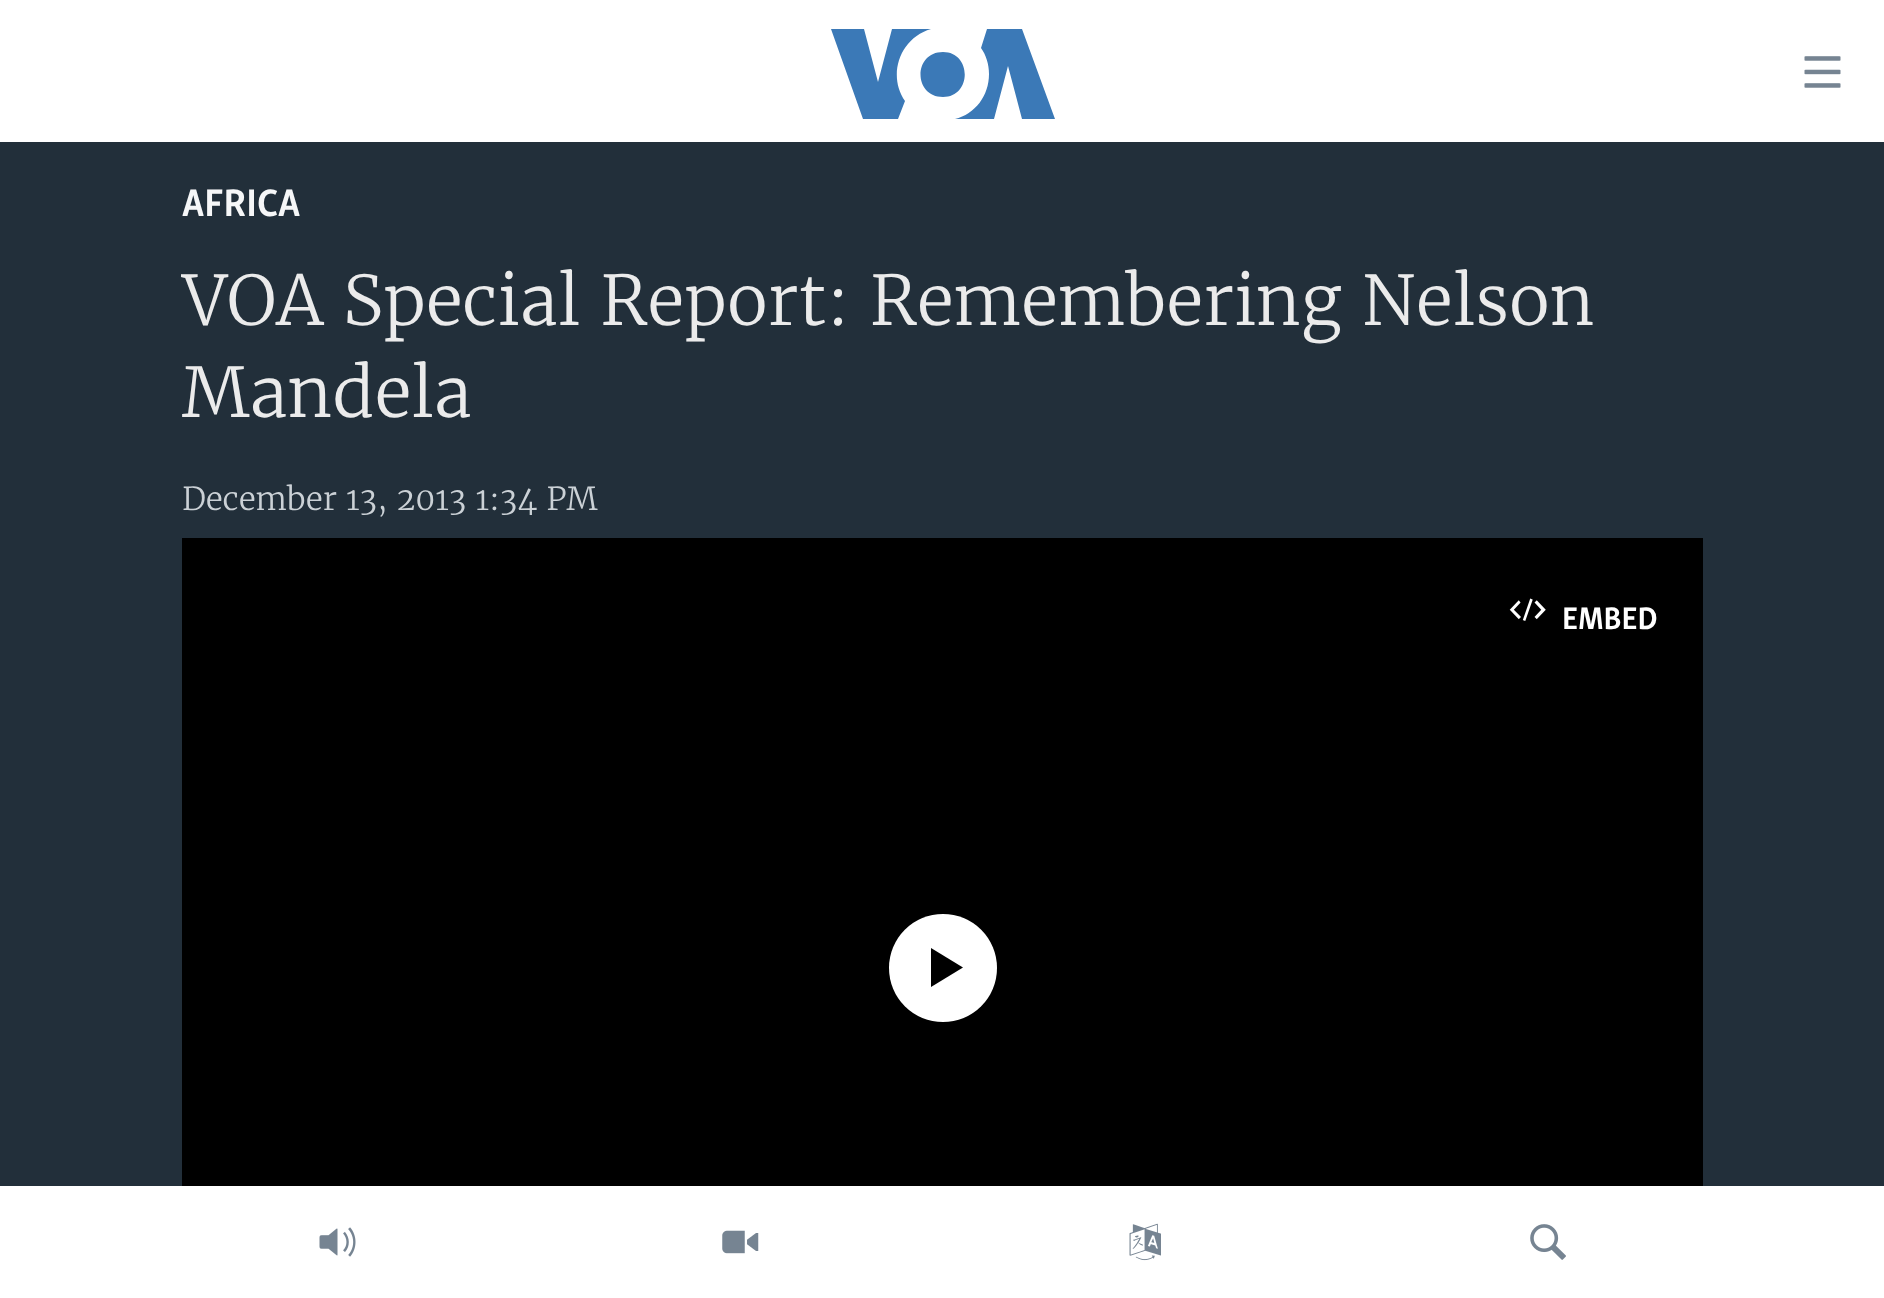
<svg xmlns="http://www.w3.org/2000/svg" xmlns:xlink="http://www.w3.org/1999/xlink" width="1884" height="1298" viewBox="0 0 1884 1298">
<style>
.cls-1{font:bold 39.5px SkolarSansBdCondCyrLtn;fill:#f6f7f8}
.cls-2{font:300 68.4px Merriweather;fill:#ebebeb}
.cls-3{font:300 31.5px Merriweather;fill:#cbd1d6}
.cls-4{font:bold 32px SkolarSansBdCondCyrLtn;fill:#ffffff}
</style>
<rect width="100%" height="100%" fill="#222f3a"/>
<rect fill="#ffffff" x="0" y="0" width="1884" height="142"/>
<path fill="#3b79b7" d="M905 101L898 119H863L831 29H864L878 82L892 29H931C900 38 887 75 905 101ZM943 52C913 52 913 97 943 97C972 97 972 52 943 52ZM989 74C989 96 975 114 955 119H994L1008 66L1022 119H1055L1022 29H987L981 48C986 55 989 64 989 74Z"/>
<image xlink:href="image0.png" x="1804" y="56" width="37" height="32"/>
<rect fill="#ffffff" x="0" y="1186" width="1884" height="112"/>
<image xlink:href="image1.png" x="319" y="1227" width="37" height="30"/>
<image xlink:href="image2.png" x="722" y="1230" width="37" height="24"/>
<image xlink:href="image3.png" x="1129" y="1223" width="32" height="38"/>
<image xlink:href="image4.png" x="1530" y="1224" width="36" height="36"/>
<rect fill="#000000" x="182" y="538" width="1521" height="648"/>
<image xlink:href="image5.png" x="1509" y="598" width="37" height="23"/>
<circle fill="#ffffff" cx="943" cy="968" r="54"/>
<path fill="#000000" d="M931 987L963 967.5L931 948Z"/>
<text class="cls-1" x="182" y="216">AFRICA</text>
<text class="cls-2"><tspan x="182" y="325">VOA Special Report: Remembering Nelson</tspan><tspan x="182" y="417">Mandela</tspan></text>
<text class="cls-3" x="182" y="510">December 13, 2013 1:34 PM</text>
<text class="cls-4" x="1562" y="629">EMBED</text>
</svg>
